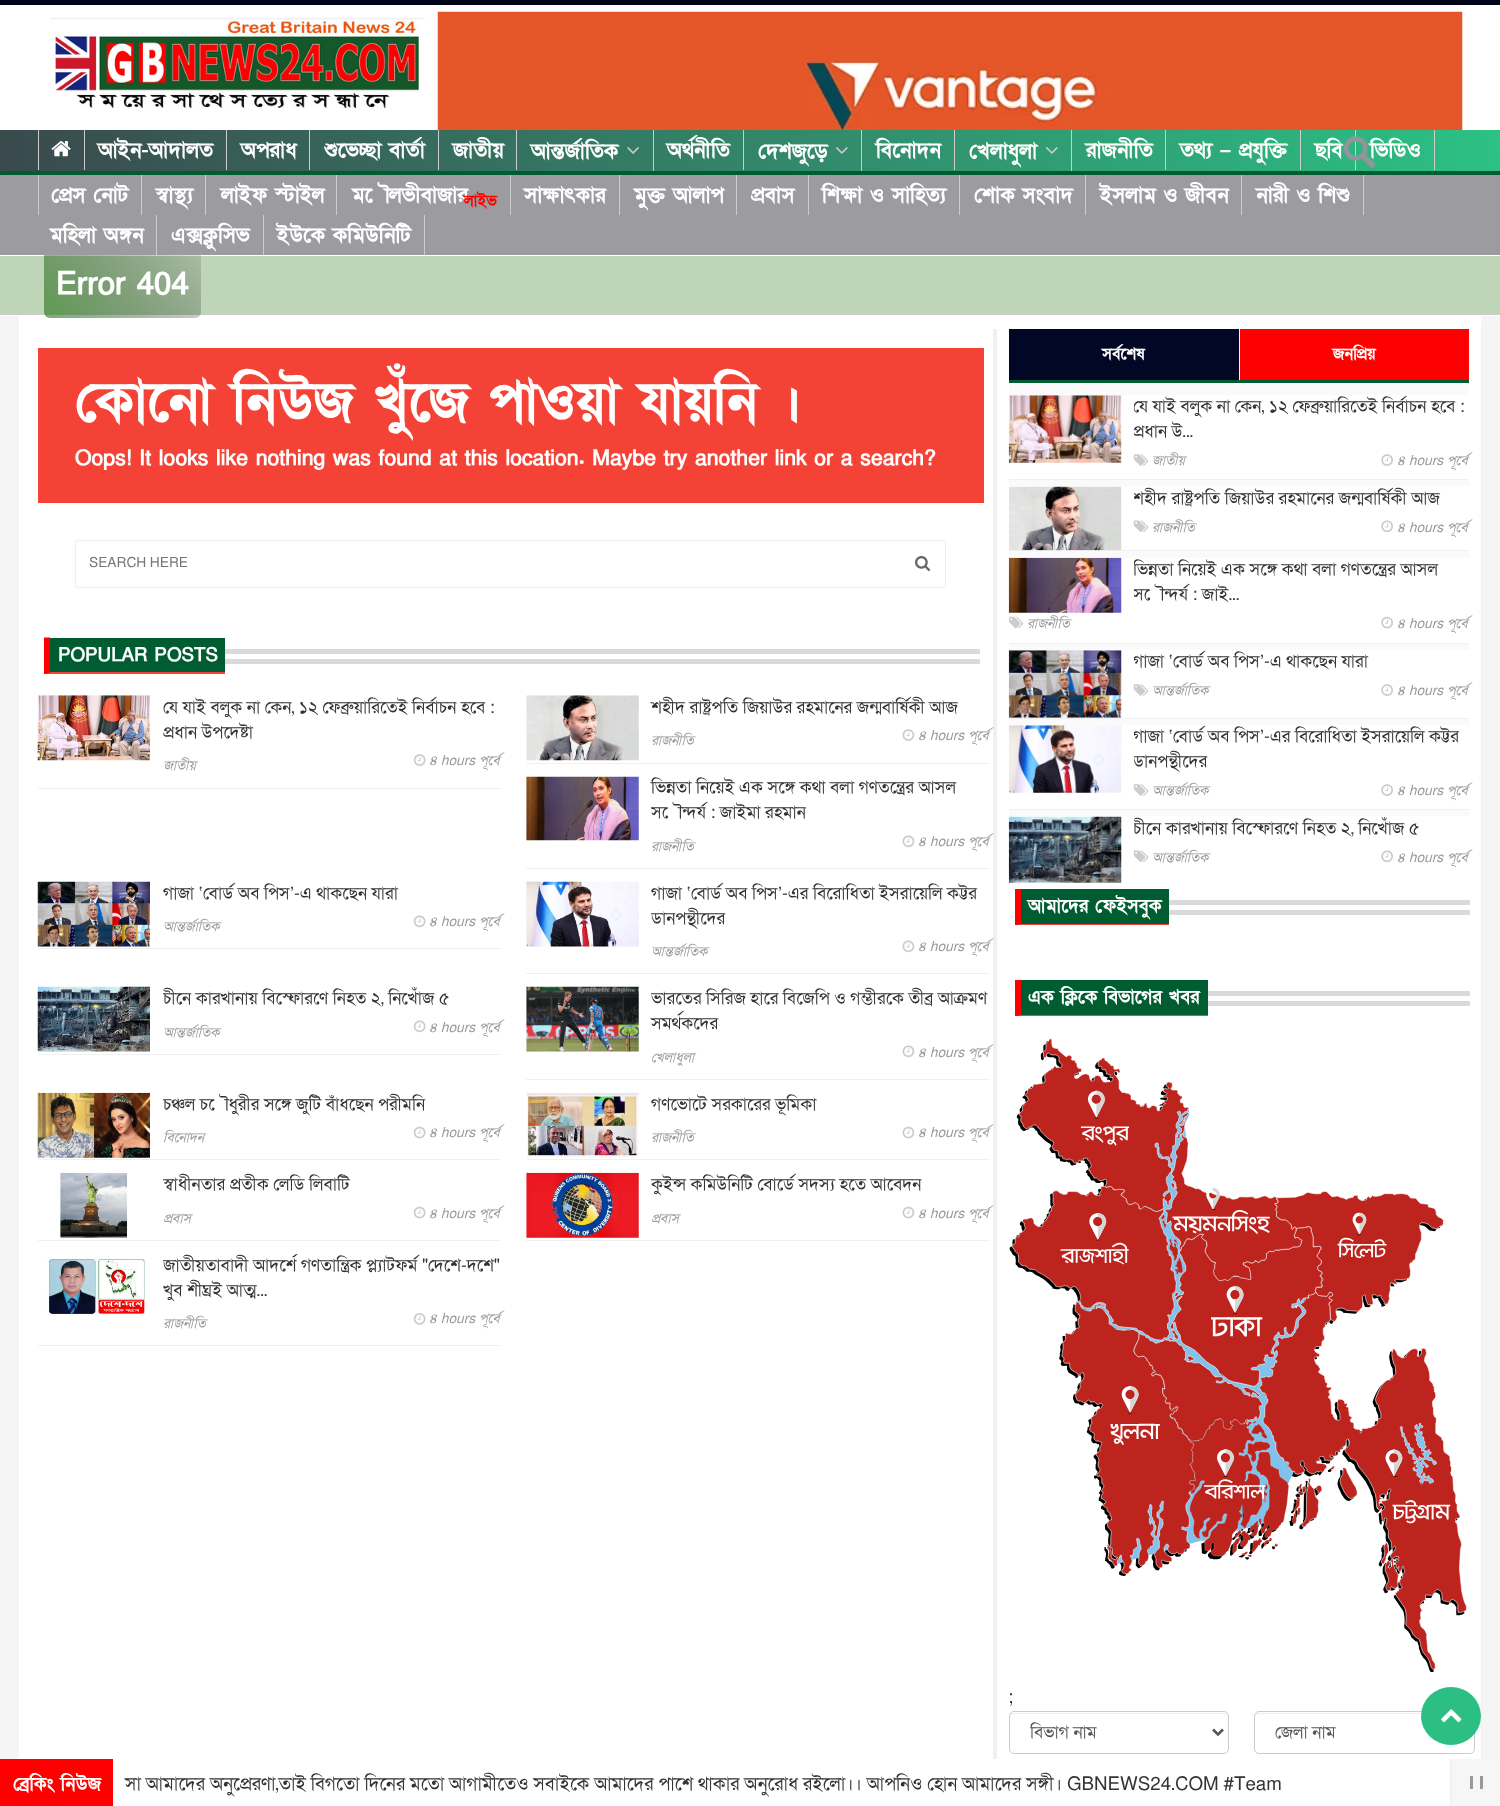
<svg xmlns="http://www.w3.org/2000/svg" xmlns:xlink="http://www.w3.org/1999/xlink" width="1500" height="1806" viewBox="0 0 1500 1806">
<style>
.cls-1{font:bold 21.25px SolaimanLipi;fill:#ffffff}
.cls-2{font:bold 16px SolaimanLipi;fill:#ff0000}
.cls-3{font:bold 31.25px SolaimanLipi;fill:#ffffff}
.cls-4{font:bold 56.25px SolaimanLipi;fill:#ffffff}
.cls-5{font:13.75px SolaimanLipi;fill:#757575}
.cls-6{font:bold 18.75px SolaimanLipi;fill:#ffffff}
.cls-7{font:17.5px SolaimanLipi;fill:#333333}
.cls-8{font:italic 13.75px SolaimanLipi;fill:#999999}
.cls-9{font:bold 16px SolaimanLipi;fill:#ffffff}
.cls-10{font:18.75px SolaimanLipi;fill:#333333}
.cls-11{font:17.5px SolaimanLipi;fill:#555555}
</style>
<defs>
<linearGradient id="g1" gradientUnits="userSpaceOnUse" x1="19" y1="281" x2="1481" y2="24"><stop offset="0" stop-color="#3a494d"/><stop offset="1" stop-color="#2cc185"/></linearGradient>
<linearGradient id="g2" gradientUnits="userSpaceOnUse" x1="60" y1="337" x2="185" y2="232"><stop offset="0" stop-color="#106b00" stop-opacity="0.55"/><stop offset="1" stop-color="#000000" stop-opacity="0.11"/></linearGradient>
<clipPath id="clip1"><rect x="163" y="695" width="338" height="50"/></clipPath>
<clipPath id="clip2"><rect x="651" y="776" width="339" height="50"/></clipPath>
<clipPath id="clip3"><rect x="163" y="881" width="338" height="25"/></clipPath>
<clipPath id="clip4"><rect x="651" y="881" width="339" height="50"/></clipPath>
<clipPath id="clip5"><rect x="163" y="986" width="338" height="25"/></clipPath>
<clipPath id="clip6"><rect x="651" y="986" width="339" height="50"/></clipPath>
<clipPath id="clip7"><rect x="163" y="1093" width="338" height="25"/></clipPath>
<clipPath id="clip8"><rect x="163" y="1173" width="338" height="25"/></clipPath>
<clipPath id="clip9"><rect x="651" y="1173" width="339" height="25"/></clipPath>
<clipPath id="clip10"><rect x="163" y="1254" width="338" height="50"/></clipPath>
<clipPath id="clip11"><rect x="1134" y="395" width="335" height="50"/></clipPath>
<clipPath id="clip12"><rect x="1134" y="486" width="335" height="25"/></clipPath>
<clipPath id="clip13"><rect x="1134" y="558" width="335" height="50"/></clipPath>
<clipPath id="clip14"><rect x="1134" y="650" width="335" height="25"/></clipPath>
<clipPath id="clip15"><rect x="1134" y="725" width="335" height="50"/></clipPath>
<clipPath id="clip16"><rect x="1134" y="816" width="335" height="25"/></clipPath>
<clipPath id="clip17"><rect x="1030" y="1720" width="163" height="26"/></clipPath>
</defs>
<rect width="100%" height="100%" fill="#ffffff"/>
<rect fill="#00041a" x="0" y="0" width="1500" height="5"/>
<image xlink:href="image0.png" x="50" y="17" width="375" height="92"/>
<image xlink:href="image1.png" x="437" y="11" width="1026" height="119"/>
<rect fill="url(#g1)" x="0" y="130" width="1500" height="41"/>
<rect fill="#005d32" x="0" y="171" width="1500" height="4"/>
<rect fill="#cccccc" x="84" y="130" width="1" height="40"/>
<rect fill="#cccccc" x="38" y="130" width="1" height="40"/>
<image xlink:href="image2.png" x="51" y="141" width="20" height="16"/>
<rect fill="#cccccc" x="226" y="130" width="1" height="40"/>
<rect fill="#cccccc" x="309" y="130" width="1" height="40"/>
<rect fill="#cccccc" x="438" y="130" width="1" height="40"/>
<rect fill="#cccccc" x="516" y="130" width="1" height="40"/>
<rect fill="#cccccc" x="653" y="130" width="1" height="41"/>
<image xlink:href="image3.png" x="627" y="147" width="12" height="7"/>
<rect fill="#cccccc" x="743" y="130" width="1" height="40"/>
<rect fill="#cccccc" x="861" y="130" width="1" height="41"/>
<image xlink:href="image4.png" x="836" y="147" width="12" height="7"/>
<rect fill="#cccccc" x="954" y="130" width="1" height="40"/>
<rect fill="#cccccc" x="1071" y="130" width="1" height="41"/>
<image xlink:href="image5.png" x="1046" y="147" width="12" height="7"/>
<rect fill="#cccccc" x="1165" y="130" width="1" height="40"/>
<rect fill="#cccccc" x="1300" y="130" width="1" height="40"/>
<rect fill="#cccccc" x="1355" y="130" width="1" height="40"/>
<rect fill="#cccccc" x="1434" y="130" width="1" height="40"/>
<rect fill="#bed5b7" x="0" y="256" width="1500" height="58"/>
<rect fill="#cccccc" x="0" y="314" width="1500" height="1"/>
<rect fill="#f5f5f5" x="0" y="316" width="1500" height="1443"/>
<rect fill="#ffffff" x="19" y="316" width="1462" height="1443"/>
<rect fill="url(#g2)" x="44" y="251" width="157" height="67" rx="6"/>
<rect fill="#9b9ba0" x="0" y="175" width="1500" height="80"/>
<rect fill="#cccccc" x="141" y="175" width="1" height="40"/>
<rect fill="#cccccc" x="38" y="175" width="1" height="40"/>
<rect fill="#cccccc" x="205" y="175" width="1" height="40"/>
<rect fill="#cccccc" x="336" y="175" width="1" height="40"/>
<rect fill="#cccccc" x="510" y="175" width="1" height="40"/>
<rect fill="#cccccc" x="619" y="175" width="1" height="40"/>
<rect fill="#cccccc" x="736" y="175" width="1" height="40"/>
<rect fill="#cccccc" x="808" y="175" width="1" height="40"/>
<rect fill="#cccccc" x="959" y="175" width="1" height="40"/>
<rect fill="#cccccc" x="1085" y="175" width="1" height="40"/>
<rect fill="#cccccc" x="1241" y="175" width="1" height="40"/>
<rect fill="#cccccc" x="1363" y="175" width="1" height="40"/>
<rect fill="#cccccc" x="156" y="215" width="1" height="40"/>
<rect fill="#cccccc" x="263" y="215" width="1" height="40"/>
<rect fill="#cccccc" x="424" y="215" width="1" height="40"/>
<rect fill="#f44336" x="38" y="348" width="946" height="155"/>
<rect fill="none" stroke="#eeeeee" x="75.5" y="540.5" width="870" height="47" rx="2"/>
<image xlink:href="image7.png" x="915" y="556" width="16" height="15"/>
<rect fill="#dadada" x="225" y="649" width="755" height="5"/>
<rect fill="#dadada" x="225" y="659" width="755" height="5"/>
<rect fill="#005d32" x="44" y="638" width="181" height="36"/>
<path fill="#f44336" d="M225 674H44L50 672H225Z"/>
<path fill="#ff0000" d="M44 674V637.5H50V672.5Z"/>
<rect fill="#f0f0f0" x="38" y="788" width="463" height="1"/>
<image xlink:href="image8.png" x="37" y="695" width="113" height="66"/>
<image xlink:href="image9.png" x="413" y="754" width="13" height="12"/>
<rect fill="#f0f0f0" x="526" y="763" width="464" height="1"/>
<image xlink:href="image10.png" x="526" y="695" width="113" height="66"/>
<image xlink:href="image11.png" x="902" y="729" width="13" height="12"/>
<rect fill="#f0f0f0" x="526" y="868" width="464" height="1"/>
<image xlink:href="image12.png" x="526" y="776" width="113" height="65"/>
<image xlink:href="image13.png" x="902" y="835" width="13" height="13"/>
<rect fill="#f0f0f0" x="38" y="948" width="463" height="1"/>
<image xlink:href="image14.png" x="37" y="881" width="113" height="66"/>
<image xlink:href="image15.png" x="413" y="915" width="13" height="13"/>
<rect fill="#f0f0f0" x="526" y="973" width="464" height="1"/>
<image xlink:href="image16.png" x="526" y="881" width="113" height="66"/>
<image xlink:href="image13.png" x="902" y="940" width="13" height="13"/>
<rect fill="#f0f0f0" x="38" y="1054" width="463" height="1"/>
<image xlink:href="image17.png" x="37" y="986" width="113" height="66"/>
<image xlink:href="image15.png" x="413" y="1020" width="13" height="13"/>
<rect fill="#f0f0f0" x="526" y="1079" width="464" height="1"/>
<image xlink:href="image18.png" x="526" y="986" width="113" height="66"/>
<image xlink:href="image13.png" x="902" y="1045" width="13" height="13"/>
<rect fill="#f0f0f0" x="38" y="1159" width="463" height="1"/>
<image xlink:href="image19.png" x="37" y="1092" width="113" height="66"/>
<image xlink:href="image20.png" x="413" y="1126" width="13" height="13"/>
<rect fill="#f0f0f0" x="526" y="1159" width="464" height="1"/>
<image xlink:href="image21.png" x="526" y="1093" width="113" height="65"/>
<image xlink:href="image22.png" x="902" y="1126" width="13" height="13"/>
<rect fill="#f0f0f0" x="38" y="1240" width="463" height="1"/>
<image xlink:href="image23.png" x="60" y="1172" width="68" height="66"/>
<image xlink:href="image20.png" x="413" y="1206" width="13" height="13"/>
<rect fill="#f0f0f0" x="526" y="1240" width="464" height="1"/>
<image xlink:href="image24.png" x="526" y="1172" width="113" height="66"/>
<image xlink:href="image22.png" x="902" y="1206" width="13" height="13"/>
<rect fill="#f0f0f0" x="38" y="1345" width="463" height="1"/>
<image xlink:href="image25.png" x="47" y="1258" width="99" height="58"/>
<image xlink:href="image26.png" x="413" y="1313" width="13" height="12"/>
<rect fill="#f0f0f0" x="993" y="329" width="4" height="1430"/>
<rect fill="#005d32" x="1009" y="380" width="460" height="3"/>
<rect fill="#010724" x="1009" y="329" width="230" height="51"/>
<rect fill="#ff0000" x="1240" y="329" width="229" height="51"/>
<rect fill="#fafafa" x="1009" y="383" width="460" height="433"/>
<rect fill="#ffffff" x="1009" y="395" width="460" height="84"/>
<rect fill="#f0f0f0" x="1009" y="479" width="460" height="1"/>
<image xlink:href="image27.png" x="1008" y="395" width="114" height="68"/>
<image xlink:href="image28.png" x="1133" y="454" width="16" height="12"/>
<image xlink:href="image29.png" x="1381" y="454" width="12" height="12"/>
<rect fill="#ffffff" x="1009" y="486" width="460" height="64"/>
<rect fill="#f0f0f0" x="1009" y="550" width="460" height="1"/>
<image xlink:href="image30.png" x="1009" y="486" width="113" height="65"/>
<image xlink:href="image31.png" x="1133" y="520" width="16" height="12"/>
<image xlink:href="image32.png" x="1381" y="520" width="12" height="13"/>
<rect fill="#ffffff" x="1009" y="558" width="460" height="85"/>
<rect fill="#f0f0f0" x="1009" y="643" width="460" height="1"/>
<image xlink:href="image33.png" x="1008" y="557" width="114" height="56"/>
<image xlink:href="image34.png" x="1009" y="616" width="15" height="13"/>
<image xlink:href="image35.png" x="1381" y="616" width="12" height="13"/>
<rect fill="#ffffff" x="1009" y="650" width="460" height="68"/>
<rect fill="#f0f0f0" x="1009" y="718" width="460" height="1"/>
<image xlink:href="image36.png" x="1008" y="650" width="114" height="68"/>
<image xlink:href="image28.png" x="1133" y="684" width="16" height="12"/>
<image xlink:href="image29.png" x="1381" y="684" width="12" height="12"/>
<rect fill="#ffffff" x="1009" y="725" width="460" height="84"/>
<rect fill="#f0f0f0" x="1009" y="809" width="460" height="1"/>
<image xlink:href="image37.png" x="1008" y="725" width="114" height="68"/>
<image xlink:href="image28.png" x="1133" y="784" width="16" height="12"/>
<image xlink:href="image29.png" x="1381" y="784" width="12" height="12"/>
<image xlink:href="image38.png" x="1008" y="816" width="114" height="67"/>
<image xlink:href="image31.png" x="1133" y="850" width="16" height="12"/>
<image xlink:href="image32.png" x="1381" y="850" width="12" height="13"/>
<rect fill="#dadada" x="1169" y="900" width="301" height="5"/>
<rect fill="#dadada" x="1169" y="910" width="301" height="5"/>
<rect fill="#005d32" x="1015" y="889" width="154" height="36"/>
<path fill="#f44336" d="M1169 925H1015L1021 924H1169Z"/>
<path fill="#ff0000" d="M1015 925V889H1021V924Z"/>
<rect fill="#dadada" x="1208" y="991" width="262" height="5"/>
<rect fill="#dadada" x="1208" y="1001" width="262" height="5"/>
<rect fill="#005d32" x="1015" y="980" width="193" height="36"/>
<path fill="#f44336" d="M1208 1016H1015L1021 1015H1208Z"/>
<path fill="#ff0000" d="M1015 1016V980H1021V1015Z"/>
<image xlink:href="image39.png" x="1009" y="1039" width="458" height="633"/>
<path fill="#ececec" d="M1014 1714H1224C1226 1714 1228 1715 1228 1718C1228 1715 1227 1713 1224 1713H1012C1010 1714 1010 1716 1010 1718C1010 1715 1012 1714 1014 1714Z"/>
<rect fill="none" stroke="#cccccc" x="1009.5" y="1711.5" width="219" height="42" rx="4.5"/>
<path fill="none" stroke="#555555" stroke-width="2.5" d="M1213 1729.5L1218 1734.5L1223 1729.5"/>
<path fill="#ececec" d="M1259 1714H1470C1472 1714 1474 1715 1474 1718C1474 1715 1473 1713 1470 1713H1257C1255 1714 1255 1716 1255 1718C1255 1715 1257 1714 1259 1714Z"/>
<rect fill="none" stroke="#cccccc" x="1254.5" y="1711.5" width="220" height="42" rx="4.5"/>
<rect fill="#f0f0f0" x="1481" y="329" width="1" height="1430"/>
<ellipse fill="#2cbf84" cx="1451" cy="1716" rx="30" ry="29"/>
<image xlink:href="image40.png" x="1441" y="1709" width="21" height="14"/>
<rect fill="#ff0000" x="0" y="1759" width="113" height="47"/>
<rect fill="#f6f6f6" x="1451" y="1759" width="49" height="47"/>
<rect fill="#eeeeee" x="1450" y="1759" width="1" height="47"/>
<rect fill="#999999" x="1480" y="1776" width="3" height="13"/>
<rect fill="#999999" x="1470" y="1776" width="3" height="13"/>
<text class="cls-1" x="98" y="157">আইন-আদালত</text>
<text class="cls-1" x="241" y="157">অপরাধ</text>
<text class="cls-1" x="324" y="157">শুভেচ্ছা বার্তা</text>
<text class="cls-1" x="453" y="157">জাতীয়</text>
<text class="cls-1" x="531" y="158">আন্তর্জাতিক</text>
<text class="cls-1" x="667" y="157">অর্থনীতি</text>
<text class="cls-1" x="758" y="158">দেশজুড়ে</text>
<text class="cls-1" x="876" y="157">বিনোদন</text>
<text class="cls-1" x="969" y="158">খেলাধুলা</text>
<text class="cls-1" x="1086" y="157">রাজনীতি</text>
<text class="cls-1" x="1180" y="157">তথ্য – প্রযুক্তি</text>
<text class="cls-1" x="1315" y="157">ছবি</text>
<text class="cls-1" x="1370" y="157">ভিডিও</text>
<image xlink:href="image6.png" x="1343" y="136" width="32" height="32"/>
<text class="cls-1" x="51" y="202">প্রেস নোট</text>
<text class="cls-1" x="156" y="202">স্বাস্থ্য</text>
<text class="cls-1" x="221" y="202">লাইফ স্টাইল</text>
<text class="cls-1" x="352" y="202">মৌলভীবাজার</text>
<text class="cls-2" x="464" y="206">লাইভ</text>
<text class="cls-1" x="524" y="202">সাক্ষাৎকার</text>
<text class="cls-1" x="634" y="202">মুক্ত আলাপ</text>
<text class="cls-1" x="751" y="202">প্রবাস</text>
<text class="cls-1" x="822" y="202">শিক্ষা ও সাহিত্য</text>
<text class="cls-1" x="974" y="202">শোক সংবাদ</text>
<text class="cls-1" x="1100" y="202">ইসলাম ও জীবন</text>
<text class="cls-1" x="1256" y="202">নারী ও শিশু</text>
<text class="cls-1" x="50" y="242">মহিলা অঙ্গন</text>
<text class="cls-1" x="171" y="242">এক্সক্লুসিভ</text>
<text class="cls-1" x="277" y="242">ইউকে কমিউনিটি</text>
<text class="cls-3" x="56" y="294">Error 404</text>
<text class="cls-4" x="75" y="420">কোনো নিউজ খুঁজে পাওয়া যায়নি ।</text>
<text class="cls-1" x="75" y="465">Oops! It looks like nothing was found at this location. Maybe try another link or a search?</text>
<text class="cls-5" x="89" y="567">SEARCH HERE</text>
<text class="cls-6" x="58" y="661">POPULAR POSTS</text>
<g clip-path="url(#clip1)">
<text class="cls-7" x="163" y="713">যে যাই বলুক না কেন, ১২ ফেব্রুয়ারিতেই নির্বাচন হবে :</text>
</g>
<text class="cls-7" x="163" y="738">প্রধান উপদেষ্টা</text>
<text class="cls-8" x="163" y="770">জাতীয়</text>
<text class="cls-8" x="429" y="765">৪ hours পূর্বে</text>
<text class="cls-7" x="651" y="713">শহীদ রাষ্ট্রপতি জিয়াউর রহমানের জন্মবার্ষিকী আজ</text>
<text class="cls-8" x="651" y="745">রাজনীতি</text>
<text class="cls-8" x="918" y="740">৪ hours পূর্বে</text>
<text class="cls-7" x="651" y="793">ভিন্নতা নিয়েই এক সঙ্গে কথা বলা গণতন্ত্রের আসল</text>
<g clip-path="url(#clip2)">
<text class="cls-7" x="651" y="818">সৌন্দর্য : জাইমা রহমান</text>
</g>
<text class="cls-8" x="651" y="851">রাজনীতি</text>
<text class="cls-8" x="918" y="846">৪ hours পূর্বে</text>
<g clip-path="url(#clip3)">
<text class="cls-7" x="163" y="899">গাজা ‘বোর্ড অব পিস’-এ থাকছেন যারা</text>
</g>
<text class="cls-8" x="163" y="931">আন্তর্জাতিক</text>
<text class="cls-8" x="429" y="926">৪ hours পূর্বে</text>
<g clip-path="url(#clip4)">
<text class="cls-7"><tspan x="651" y="899">গাজা ‘বোর্ড অব পিস’-এর বিরোধিতা ইসরায়েলি কট্টর</tspan><tspan x="651" y="924">ডানপন্থীদের</tspan></text>
</g>
<text class="cls-8" x="651" y="956">আন্তর্জাতিক</text>
<text class="cls-8" x="918" y="951">৪ hours পূর্বে</text>
<g clip-path="url(#clip5)">
<text class="cls-7" x="163" y="1004">চীনে কারখানায় বিস্ফোরণে নিহত ২, নিখোঁজ ৫</text>
</g>
<text class="cls-8" x="163" y="1037">আন্তর্জাতিক</text>
<text class="cls-8" x="429" y="1032">৪ hours পূর্বে</text>
<g clip-path="url(#clip6)">
<text class="cls-7" x="651" y="1004">ভারতের সিরিজ হারে বিজেপি ও গম্ভীরকে তীব্র আক্রমণ</text>
</g>
<text class="cls-7" x="651" y="1029">সমর্থকদের</text>
<text class="cls-8" x="651" y="1062">খেলাধুলা</text>
<text class="cls-8" x="918" y="1057">৪ hours পূর্বে</text>
<g clip-path="url(#clip7)">
<text class="cls-7" x="163" y="1110">চঞ্চল চৌধুরীর সঙ্গে জুটি বাঁধছেন পরীমনি</text>
</g>
<text class="cls-8" x="163" y="1142">বিনোদন</text>
<text class="cls-8" x="429" y="1137">৪ hours পূর্বে</text>
<text class="cls-7" x="651" y="1110">গণভোটে সরকারের ভূমিকা</text>
<text class="cls-8" x="651" y="1142">রাজনীতি</text>
<text class="cls-8" x="918" y="1137">৪ hours পূর্বে</text>
<g clip-path="url(#clip8)">
<text class="cls-7" x="163" y="1190">স্বাধীনতার প্রতীক লেডি লিবাটি</text>
</g>
<text class="cls-8" x="163" y="1223">প্রবাস</text>
<text class="cls-8" x="429" y="1218">৪ hours পূর্বে</text>
<g clip-path="url(#clip9)">
<text class="cls-7" x="651" y="1190">কুইন্স কমিউনিটি বোর্ডে সদস্য হতে আবেদন</text>
</g>
<text class="cls-8" x="651" y="1223">প্রবাস</text>
<text class="cls-8" x="918" y="1218">৪ hours পূর্বে</text>
<g clip-path="url(#clip10)">
<text class="cls-7"><tspan x="163" y="1271">জাতীয়তাবাদী আদর্শে গণতান্ত্রিক প্ল্যাটফর্ম "দেশে-দশে"</tspan><tspan x="163" y="1296">খুব শীঘ্রই আত্ম...</tspan></text>
</g>
<text class="cls-8" x="163" y="1328">রাজনীতি</text>
<text class="cls-8" x="429" y="1323">৪ hours পূর্বে</text>
<text class="cls-9" x="1102" y="359">সর্বশেষ</text>
<text class="cls-9" x="1333" y="359">জনপ্রিয়</text>
<g clip-path="url(#clip11)">
<text class="cls-7"><tspan x="1133" y="412">যে যাই বলুক না কেন, ১২ ফেব্রুয়ারিতেই নির্বাচন হবে :</tspan><tspan x="1133" y="437">প্রধান উ...</tspan></text>
</g>
<text class="cls-8" x="1152" y="465">জাতীয়</text>
<text class="cls-8" x="1397" y="465">৪ hours পূর্বে</text>
<g clip-path="url(#clip12)">
<text class="cls-7" x="1133" y="504">শহীদ রাষ্ট্রপতি জিয়াউর রহমানের জন্মবার্ষিকী আজ</text>
</g>
<text class="cls-8" x="1152" y="532">রাজনীতি</text>
<text class="cls-8" x="1397" y="532">৪ hours পূর্বে</text>
<g clip-path="url(#clip13)">
<text class="cls-7"><tspan x="1133" y="575">ভিন্নতা নিয়েই এক সঙ্গে কথা বলা গণতন্ত্রের আসল</tspan><tspan x="1133" y="600">সৌন্দর্য : জাই...</tspan></text>
</g>
<text class="cls-8" x="1027" y="628">রাজনীতি</text>
<text class="cls-8" x="1397" y="628">৪ hours পূর্বে</text>
<g clip-path="url(#clip14)">
<text class="cls-7" x="1133" y="667">গাজা ‘বোর্ড অব পিস’-এ থাকছেন যারা</text>
</g>
<text class="cls-8" x="1152" y="695">আন্তর্জাতিক</text>
<text class="cls-8" x="1397" y="695">৪ hours পূর্বে</text>
<g clip-path="url(#clip15)">
<text class="cls-7"><tspan x="1133" y="742">গাজা ‘বোর্ড অব পিস’-এর বিরোধিতা ইসরায়েলি কট্টর</tspan><tspan x="1133" y="767">ডানপন্থীদের</tspan></text>
</g>
<text class="cls-8" x="1152" y="795">আন্তর্জাতিক</text>
<text class="cls-8" x="1397" y="795">৪ hours পূর্বে</text>
<g clip-path="url(#clip16)">
<text class="cls-7" x="1133" y="834">চীনে কারখানায় বিস্ফোরণে নিহত ২, নিখোঁজ ৫</text>
</g>
<text class="cls-8" x="1152" y="862">আন্তর্জাতিক</text>
<text class="cls-8" x="1397" y="862">৪ hours পূর্বে</text>
<text class="cls-6" x="1028" y="912">আমাদের ফেইসবুক</text>
<text class="cls-6" x="1028" y="1003">এক ক্লিকে বিভাগের খবর</text>
<text class="cls-10" x="1008" y="1703">;</text>
<g clip-path="url(#clip17)">
<text class="cls-11" x="1030" y="1738">বিভাগ নাম</text>
</g>
<text class="cls-11" x="1275" y="1738">জেলা নাম</text>
<text class="cls-6" x="13" y="1790">ব্রেকিং নিউজ</text>
<text class="cls-10" x="125" y="1790">সা আমাদের অনুপ্রেরণা,তাই বিগতো দিনের মতো আগামীতেও সবাইকে আমাদের পাশে থাকার অনুরোধ রইলো।। আপনিও হোন আমাদের সঙ্গী। GBNEWS24.COM #Team</text>
</svg>
